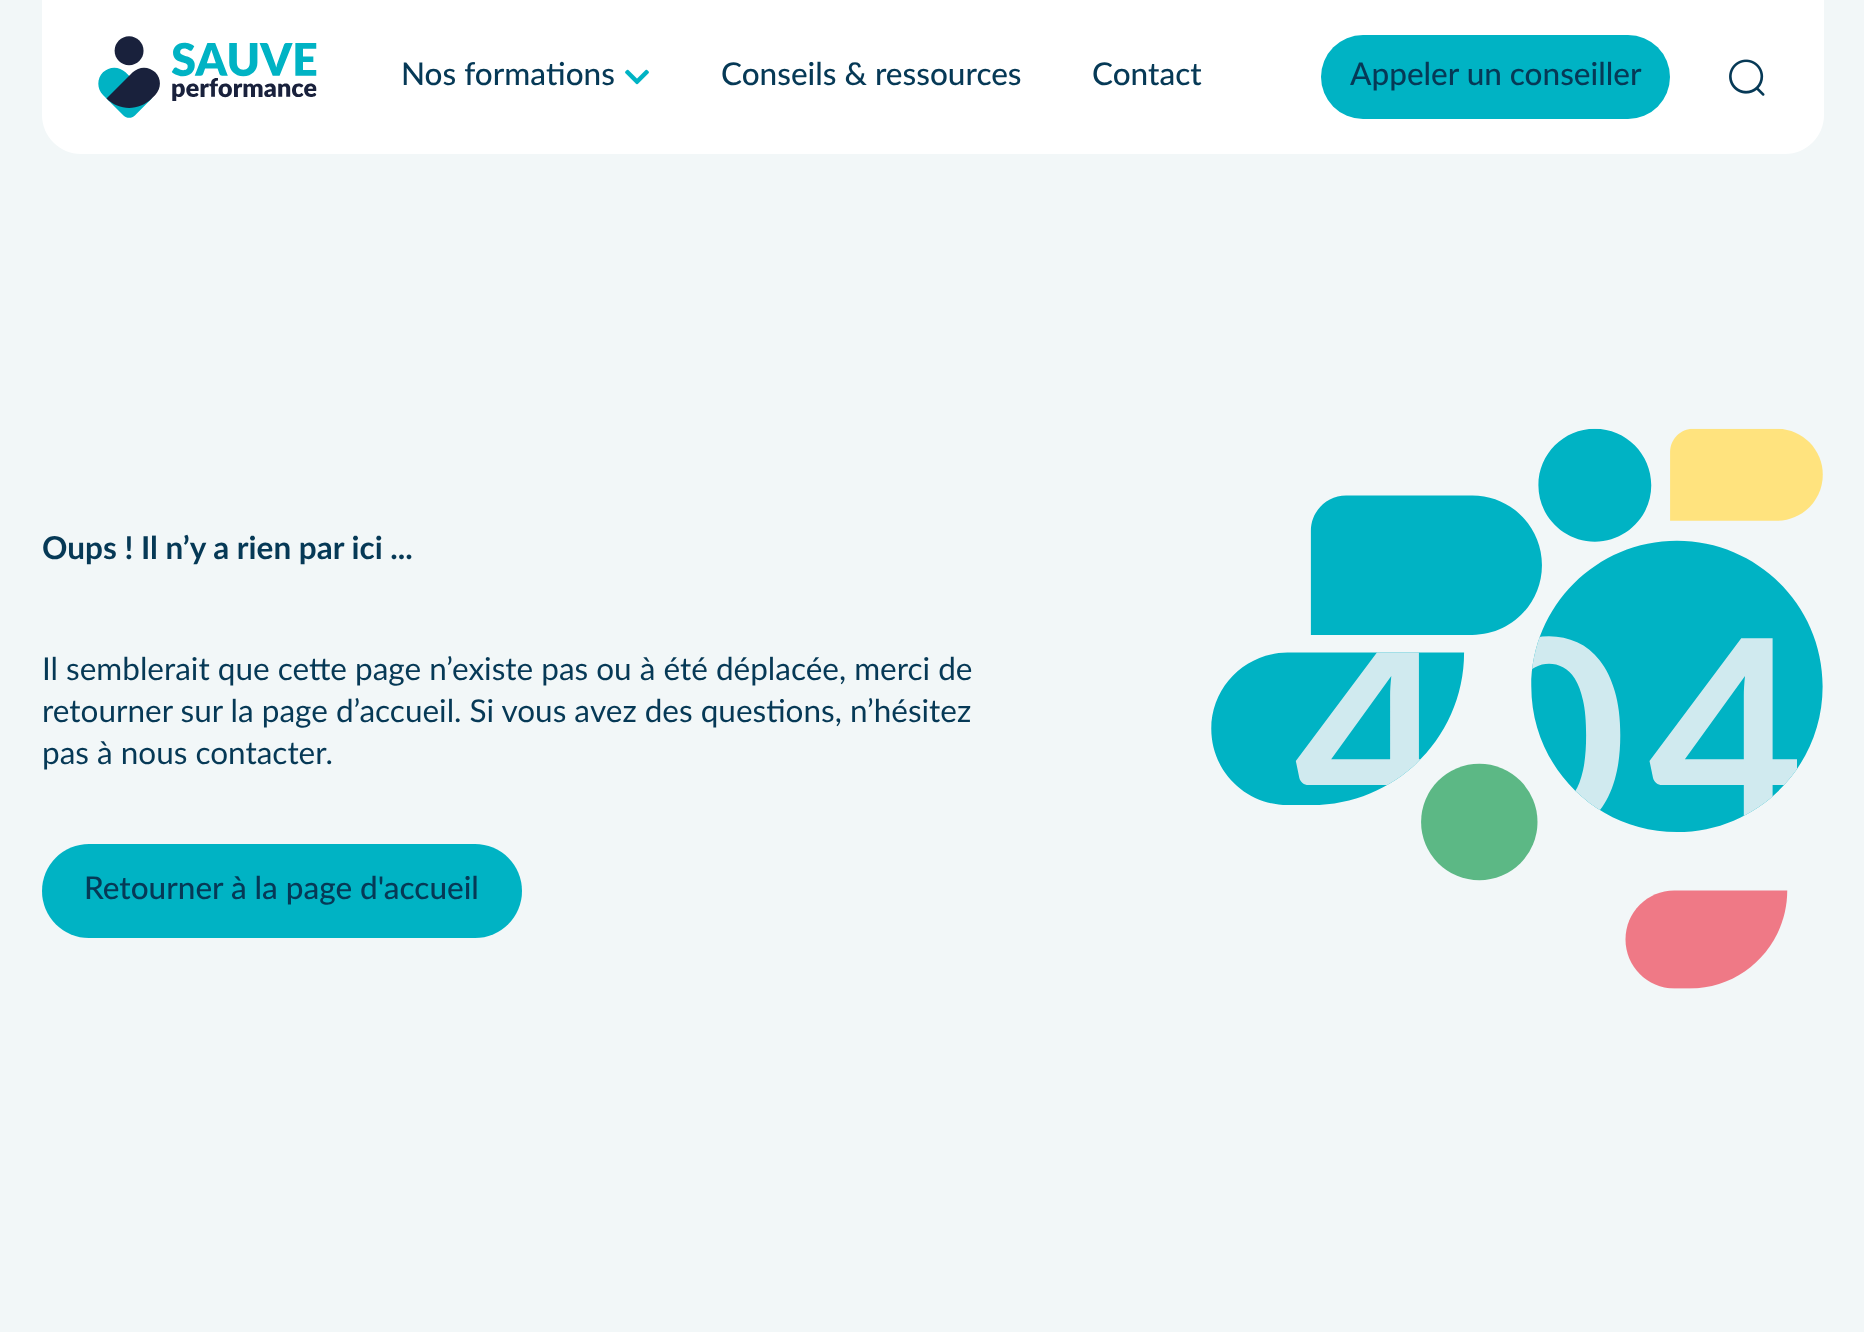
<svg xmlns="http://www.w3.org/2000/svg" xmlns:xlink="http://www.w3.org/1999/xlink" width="1864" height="1332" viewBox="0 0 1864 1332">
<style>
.cls-1{font:500 31.5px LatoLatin;fill:#063956}
.cls-2{font:bold 31.5px LatoLatin;fill:#063956}
.cls-3{font:31.5px LatoLatin;fill:#063956}
</style>
<rect width="100%" height="100%" fill="#f2f7f8"/>
<path fill="#ffffff" d="M42 0H1824V115C1824 136.5 1806.5 154 1785 154H81C59.5 154 42 136.5 42 115Z"/>
<image xlink:href="image0.png" x="98" y="36" width="219" height="82"/>
<image xlink:href="image1.png" x="625" y="69" width="24" height="16"/>
<rect fill="#00b3c4" x="1321" y="35" width="349" height="84" rx="42"/>
<image xlink:href="image2.png" x="1729" y="59" width="36" height="37"/>
<rect fill="#00b3c4" x="42" y="844" width="480" height="94" rx="47"/>
<image xlink:href="image3.png" x="1211" y="428" width="612" height="561"/>
<text class="cls-1" x="401" y="85">Nos formations</text>
<text class="cls-1" x="721" y="85">Conseils &amp; ressources</text>
<text class="cls-1" x="1092" y="85">Contact</text>
<text class="cls-1" x="1350" y="85">Appeler un conseiller</text>
<text class="cls-2" x="42" y="559">Oups ! Il n’y a rien par ici ...</text>
<text class="cls-3"><tspan x="42" y="680">Il semblerait que cette page n’existe pas ou à été déplacée, merci de</tspan><tspan x="42" y="722">retourner sur la page d’accueil. Si vous avez des questions, n’hésitez</tspan><tspan x="42" y="764">pas à nous contacter.</tspan></text>
<text class="cls-1" x="84" y="899">Retourner à la page d'accueil</text>
</svg>
